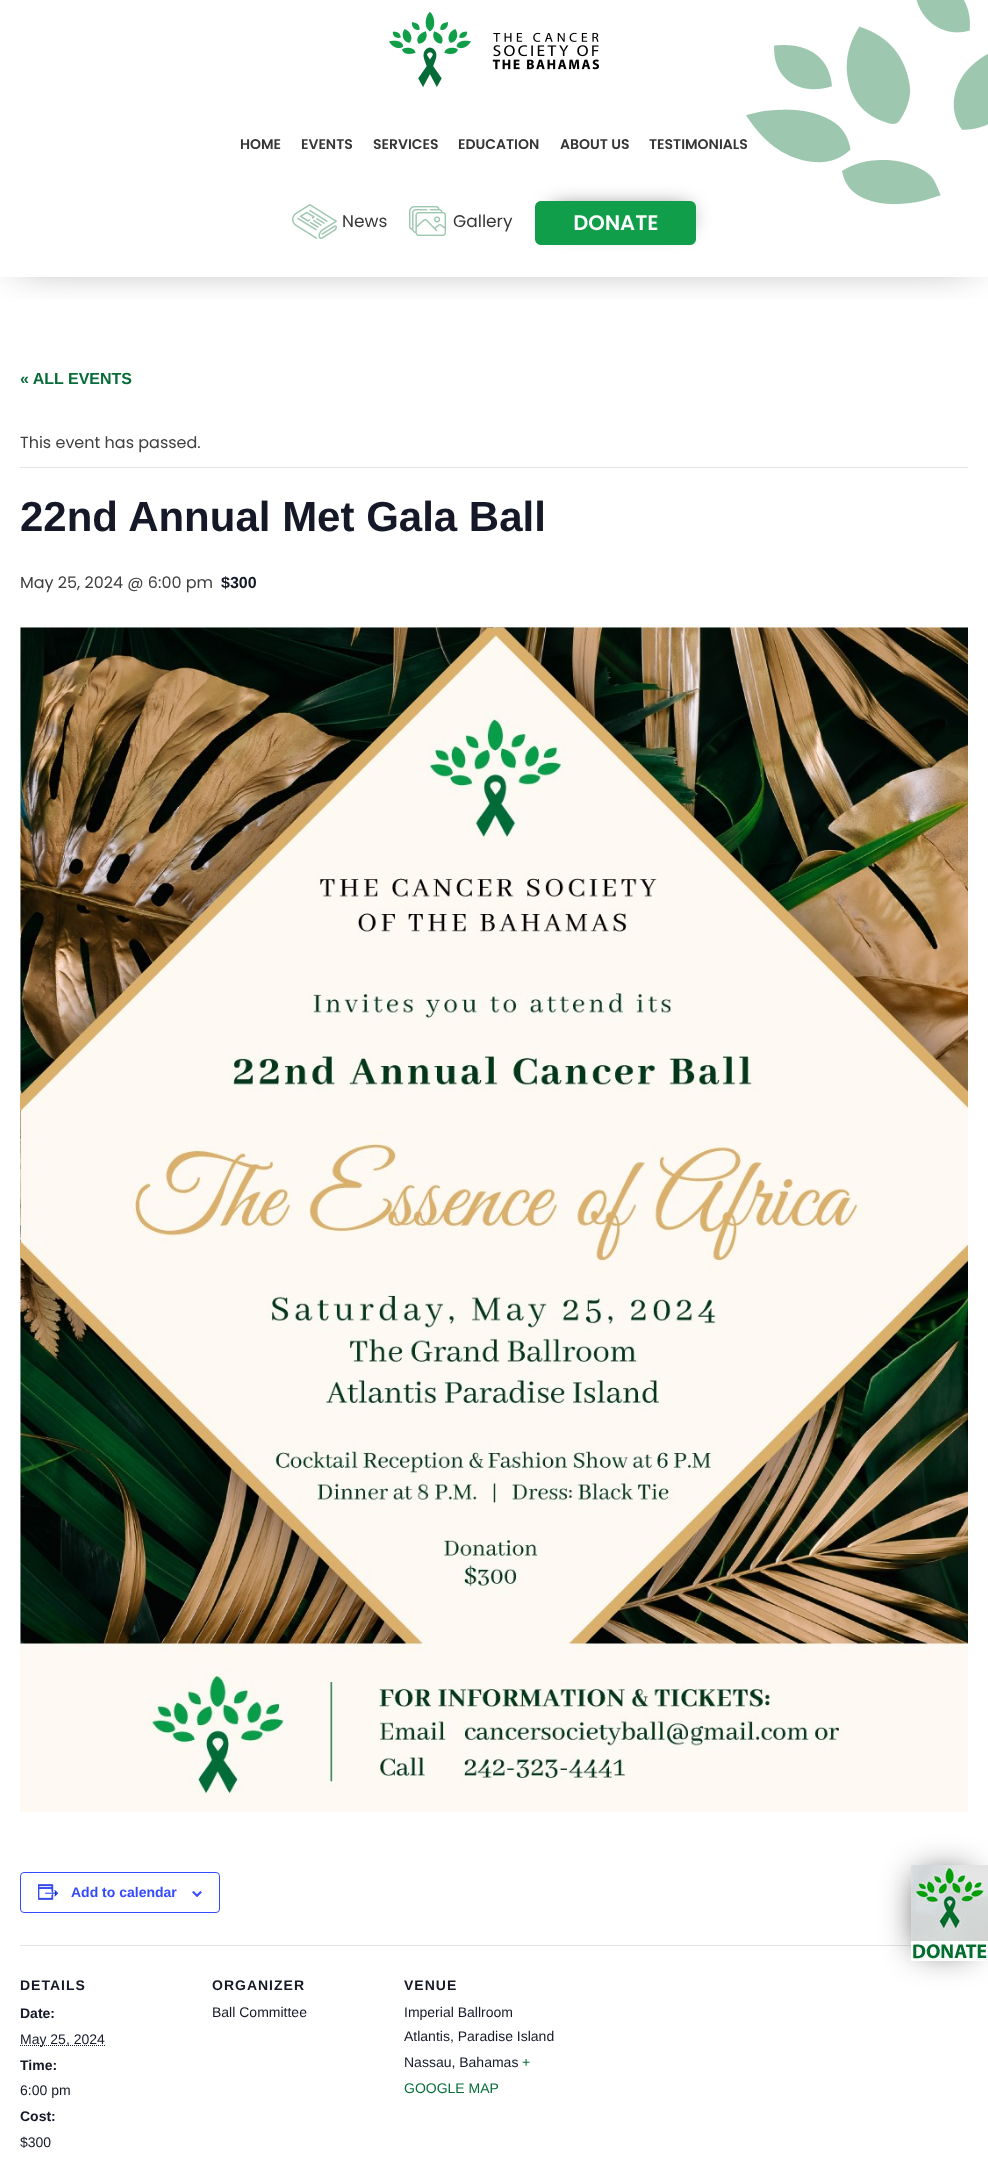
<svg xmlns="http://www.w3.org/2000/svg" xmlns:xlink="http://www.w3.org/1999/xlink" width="988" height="2163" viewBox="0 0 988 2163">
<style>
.cls-1{font:600 14px Poppins;fill:#363636}
.cls-2{font:17px Poppins;fill:#363636}
.cls-3{font:bold 16px Liberation Sans;fill:#076c37}
.cls-4{font:16px Poppins;fill:#404040}
.cls-5{font:bold 42px Liberation Sans;fill:#141827}
.cls-6{font:bold 16px Liberation Sans;fill:#141827}
.cls-7{font:bold 14px Liberation Sans;fill:#334aff}
.cls-8{font:bold 14px Liberation Sans;letter-spacing:1px;fill:#141827}
.cls-9{font:bold 14px Liberation Sans;fill:#141827}
.cls-10{font:14px Liberation Sans;fill:#141827}
.cls-11{font:14px Liberation Sans;fill:#076c37}
</style>
<defs>
<clipPath id="clip1"><rect x="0" y="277" width="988" height="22"/></clipPath>
</defs>
<rect width="100%" height="100%" fill="#ffffff"/>
<g clip-path="url(#clip1)">
<rect fill="#000000" fill-opacity="0.75" filter="blur(24px)" x="17" y="10" width="954" height="243"/>
</g>
<image xlink:href="image0.png" x="746" y="0" width="242" height="204"/>
<image xlink:href="image1.png" x="389" y="12" width="210" height="75"/>
<image xlink:href="image2.png" x="292" y="204" width="45" height="35"/>
<image xlink:href="image3.png" x="409" y="206" width="37" height="30"/>
<rect fill="#000000" fill-opacity="0.75" filter="blur(10.5px)" x="553" y="209" width="135" height="18"/>
<image xlink:href="image4.png" x="535" y="201" width="161" height="44"/>
<rect fill="#e4e4e4" x="20" y="467" width="948" height="1"/>
<image xlink:href="image5.png" x="20" y="627" width="948" height="1185"/>
<rect fill="none" stroke="#334aff" x="20.5" y="1872.5" width="199" height="40" rx="3.5"/>
<image xlink:href="image6.png" x="38" y="1884" width="21" height="16"/>
<image xlink:href="image7.png" x="192" y="1891" width="10" height="6"/>
<rect fill="#e4e4e4" x="20" y="1945" width="891" height="1"/>
<path fill="none" stroke="#141827" stroke-dasharray="1 1" d="M20 2045.5H105"/>
<rect fill="#000000" fill-opacity="0.75" filter="blur(17px)" x="918" y="1875" width="53" height="74"/>
<image xlink:href="image8.png" x="911" y="1865" width="77" height="96"/>
<text class="cls-1" x="240" y="149">HOME</text>
<text class="cls-1" x="301" y="149">EVENTS</text>
<text class="cls-1" x="373" y="149">SERVICES</text>
<text class="cls-1" x="458" y="149">EDUCATION</text>
<text class="cls-1" x="560" y="149">ABOUT US</text>
<text class="cls-1" x="649" y="149">TESTIMONIALS</text>
<text class="cls-2" x="342" y="227">News</text>
<text class="cls-2" x="453" y="227">Gallery</text>
<text class="cls-3" x="20" y="384">« ALL EVENTS</text>
<text class="cls-4" x="20" y="448">This event has passed.</text>
<text class="cls-5" x="20" y="531">22nd Annual Met Gala Ball</text>
<text class="cls-4" x="20" y="588">May 25, 2024 @ 6:00 pm</text>
<text class="cls-6" x="221" y="588">$300</text>
<text class="cls-7" x="71" y="1897">Add to calendar</text>
<text class="cls-8" x="20" y="1990">DETAILS</text>
<text class="cls-9" x="20" y="2018">Date:</text>
<text class="cls-10" x="20" y="2044">May 25, 2024</text>
<text class="cls-9" x="20" y="2070">Time:</text>
<text class="cls-10" x="20" y="2095">6:00 pm</text>
<text class="cls-9" x="20" y="2121">Cost:</text>
<text class="cls-10" x="20" y="2147">$300</text>
<text class="cls-8" x="212" y="1990">ORGANIZER</text>
<text class="cls-10" x="212" y="2017">Ball Committee</text>
<text class="cls-8" x="404" y="1990">VENUE</text>
<text class="cls-10"><tspan x="404" y="2017">Imperial Ballroom</tspan><tspan x="404" y="2041">Atlantis, Paradise Island</tspan><tspan x="404" y="2067">Nassau, Bahamas</tspan></text>
<text class="cls-11" x="522" y="2067">+</text>
<text class="cls-11" x="404" y="2093">GOOGLE MAP</text>
</svg>
